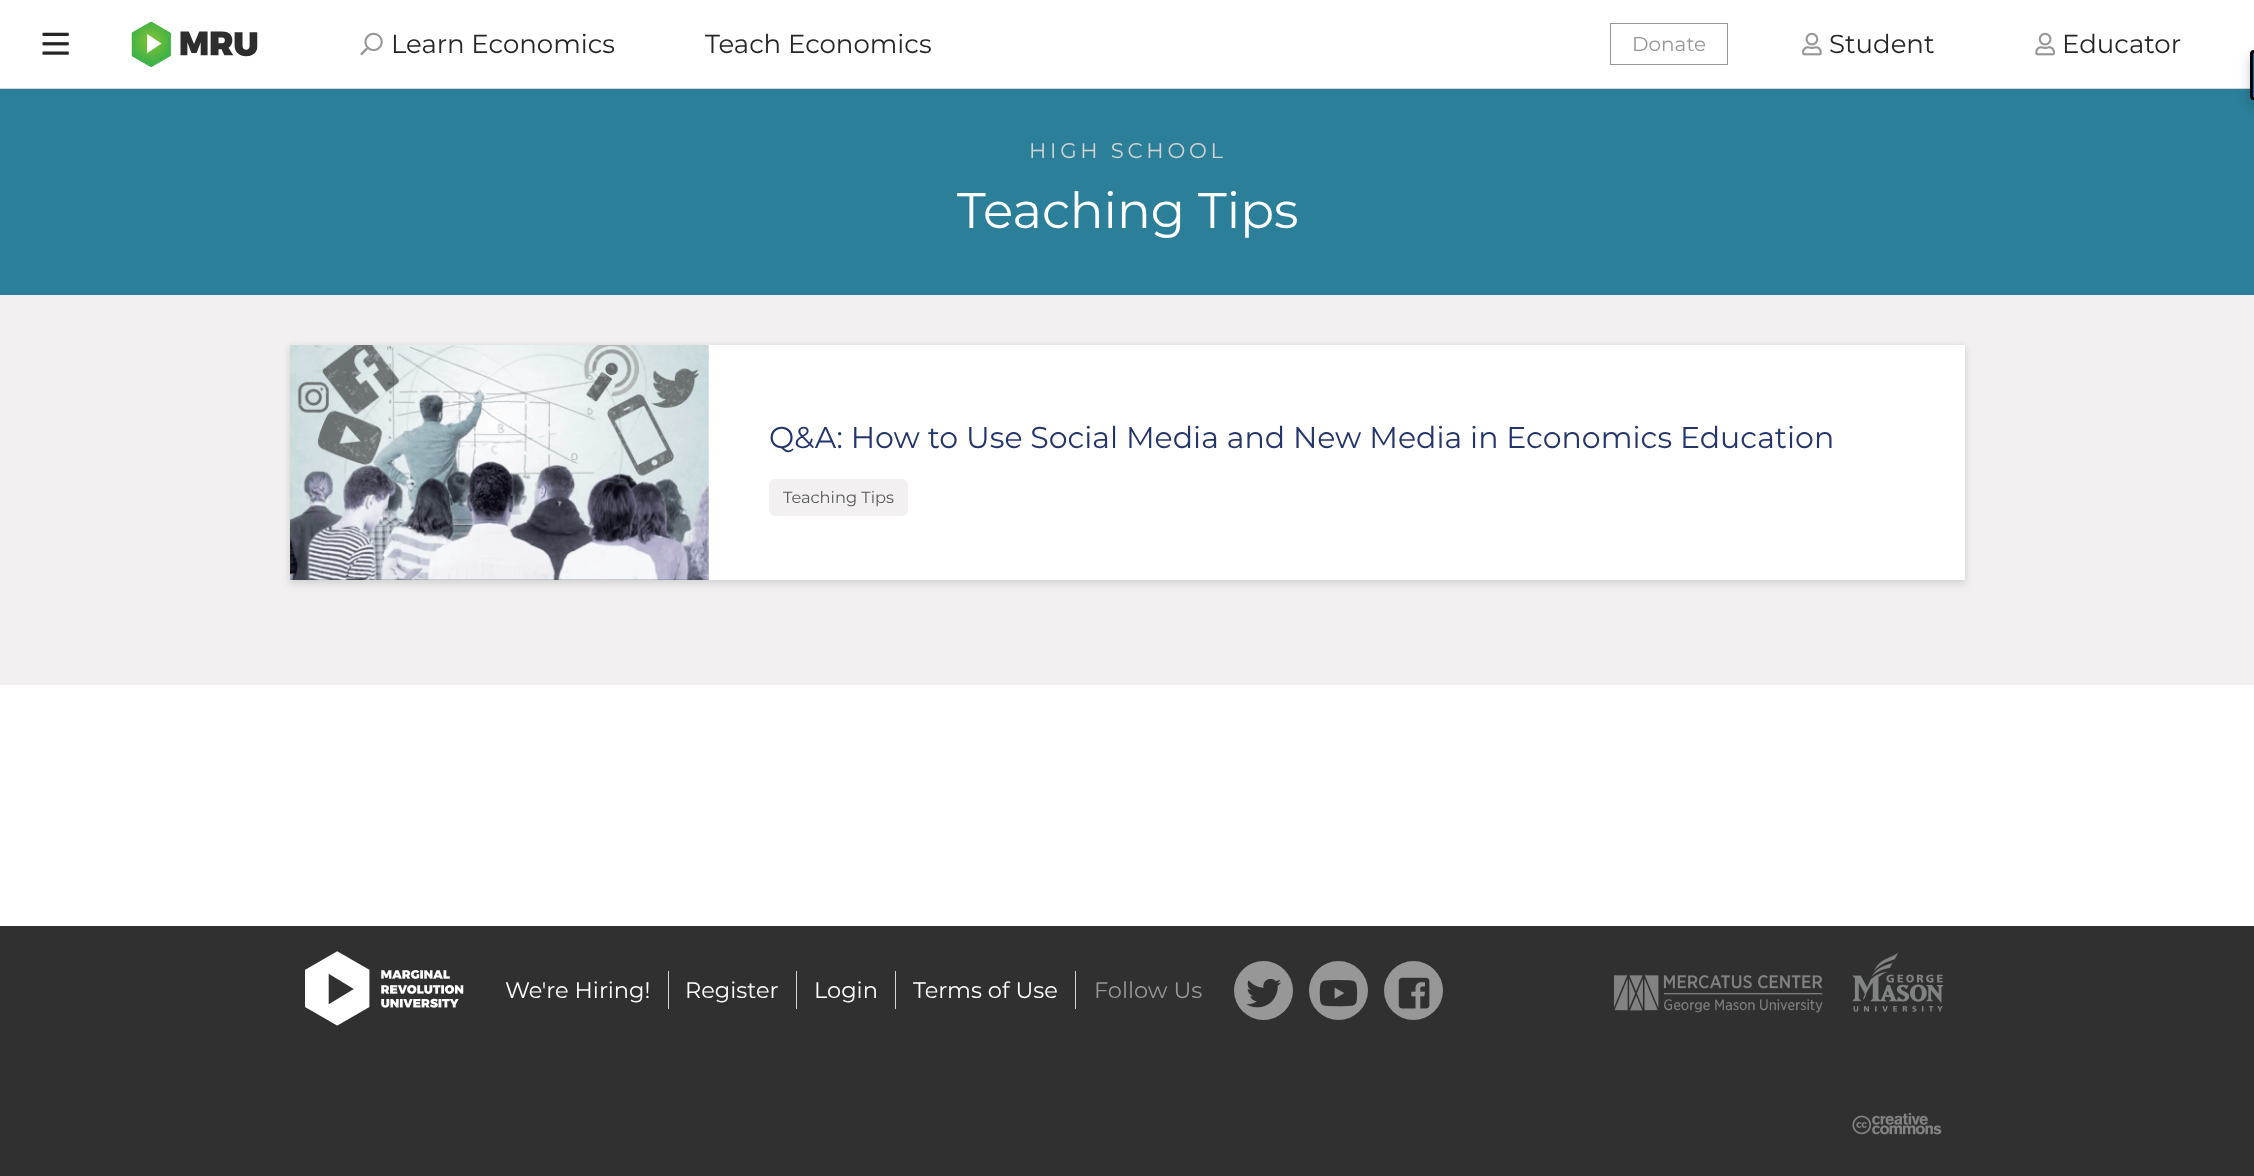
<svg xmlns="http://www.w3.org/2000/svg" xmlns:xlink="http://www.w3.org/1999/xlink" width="2254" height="1176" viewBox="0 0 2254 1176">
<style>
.cls-1{font:26px Montserrat;fill:#262626}
.cls-2{font:20px Montserrat;fill:#979797}
.cls-3{font:21.25px Montserrat;letter-spacing:3.75px;fill:#d5d4d4}
.cls-4{font:50px Montserrat;fill:#ffffff}
.cls-5{font:30px Montserrat;fill:#24356d}
.cls-6{font:16.25px Montserrat;fill:#58595b}
.cls-7{font:22.5px Montserrat;fill:#ffffff}
.cls-8{font:22.5px Montserrat;fill:#979797}
</style>
<rect width="100%" height="100%" fill="#ffffff"/>
<image xlink:href="image0.png" x="42" y="32" width="27" height="23"/>
<image xlink:href="image1.png" x="131" y="21" width="127" height="46"/>
<image xlink:href="image2.png" x="360" y="32" width="23" height="24"/>
<rect fill="none" stroke="#979797" x="1610.5" y="23.5" width="117" height="41"/>
<image xlink:href="image3.png" x="1802" y="32" width="20" height="24"/>
<image xlink:href="image4.png" x="2035" y="32" width="20" height="24"/>
<rect fill="#d5d4d4" x="0" y="88" width="2254" height="1"/>
<rect fill="#2c7f99" x="0" y="89" width="2254" height="206"/>
<rect fill="#000000" fill-opacity="0.2" filter="blur(6px)" x="2250" y="55" width="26" height="50" rx="4"/>
<path fill="#0073b7" stroke="#000000" stroke-width="3" d="M2254 51.5H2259.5V98.5H2254C2252.5 98.5 2251.5 97.5 2251.5 96V54C2251.5 52.5 2252.5 51.5 2254 51.5Z"/>
<rect fill="#f2f0f0" x="0" y="295" width="2254" height="390"/>
<rect fill="#d5d4d4" filter="blur(3px)" x="289" y="346" width="1677" height="238"/>
<rect fill="#ffffff" x="708" y="345" width="1257" height="235"/>
<image xlink:href="image5.png" x="290" y="345" width="419" height="235"/>
<rect fill="#f2f0f0" x="769" y="479" width="139" height="37" rx="6"/>
<rect fill="#303030" x="0" y="926" width="2254" height="250"/>
<image xlink:href="image6.png" x="305" y="951" width="159" height="75"/>
<rect fill="#d5d4d4" x="668" y="971" width="1" height="38"/>
<rect fill="#d5d4d4" x="796" y="971" width="1" height="38"/>
<rect fill="#d5d4d4" x="895" y="971" width="1" height="38"/>
<rect fill="#d5d4d4" x="1075" y="971" width="1" height="38"/>
<circle fill="#979797" cx="1263.5" cy="990.5" r="29.5"/>
<image xlink:href="image7.png" x="1246" y="978" width="35" height="30"/>
<circle fill="#979797" cx="1338.5" cy="990.5" r="29.5"/>
<image xlink:href="image8.png" x="1319" y="980" width="39" height="27"/>
<circle fill="#979797" cx="1413.5" cy="990.5" r="29.5"/>
<image xlink:href="image9.png" x="1398" y="977" width="32" height="32"/>
<image xlink:href="image10.png" x="1614" y="975" width="209" height="38"/>
<image xlink:href="image11.png" x="1852" y="952" width="92" height="60"/>
<image xlink:href="image12.png" x="1852" y="1113" width="90" height="22"/>
<text class="cls-1" x="391" y="53">Learn Economics</text>
<text class="cls-1" x="705" y="53">Teach Economics</text>
<text class="cls-2" x="1632" y="51">Donate</text>
<text class="cls-1" x="1829" y="53">Student</text>
<text class="cls-1" x="2062" y="53">Educator</text>
<text class="cls-3" x="1029" y="158">HIGH SCHOOL</text>
<text class="cls-4" x="957" y="228">Teaching Tips</text>
<text class="cls-5" x="769" y="448">Q&amp;A: How to Use Social Media and New Media in Economics Education</text>
<text class="cls-6" x="783" y="503">Teaching Tips</text>
<text class="cls-7" x="505" y="998">We're Hiring!</text>
<text class="cls-7" x="685" y="998">Register</text>
<text class="cls-7" x="814" y="998">Login</text>
<text class="cls-7" x="913" y="998">Terms of Use</text>
<text class="cls-8" x="1094" y="998">Follow Us</text>
</svg>
